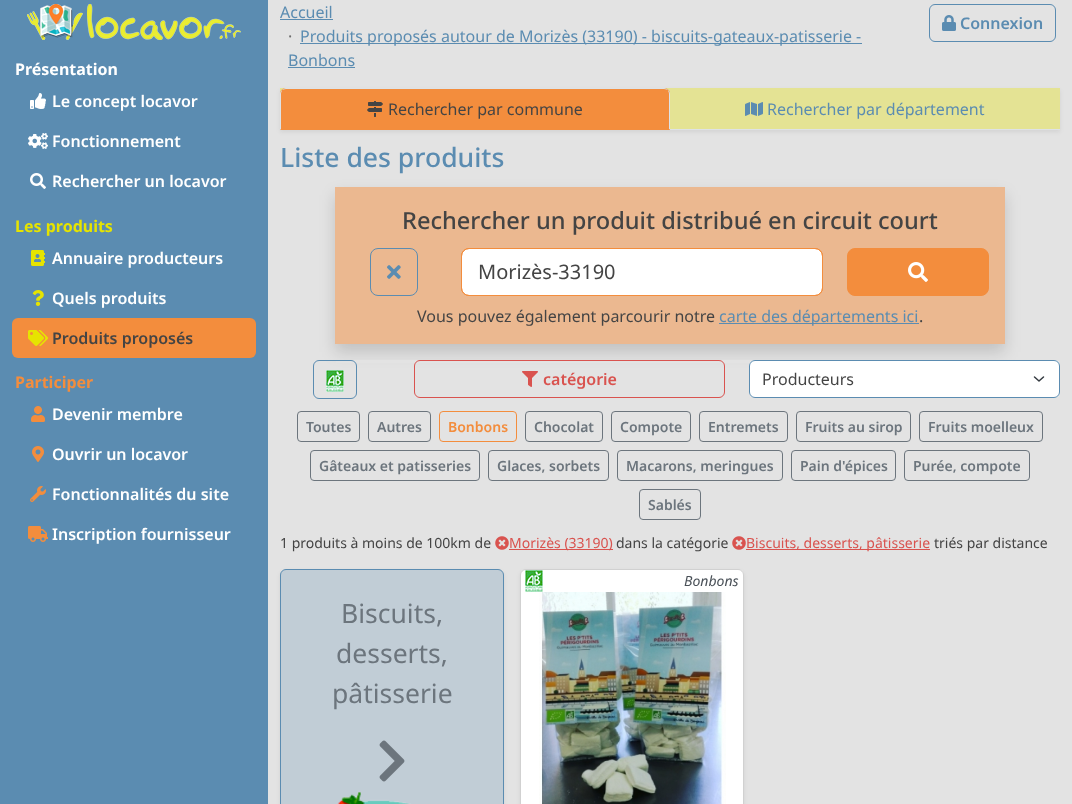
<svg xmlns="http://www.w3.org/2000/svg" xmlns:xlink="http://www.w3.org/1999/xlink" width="1072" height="804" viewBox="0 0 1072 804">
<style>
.cls-1{font:bold 16px Noto Sans;fill:#ffffff}
.cls-2{font:600 16px Noto Sans;fill:#ffffff}
.cls-3{font:bold 16px Noto Sans;fill:#e6e400}
.cls-4{font:600 16px Noto Sans;fill:#444444}
.cls-5{font:bold 16px Noto Sans;fill:#f38d3d}
.cls-6{font:16px Noto Sans;fill:#5b8cb1}
.cls-7{font:16px Noto Sans;fill:#6c6c6c}
.cls-8{font:600 16px Noto Sans;fill:#5b8cb1}
.cls-9{font:16px Noto Sans;fill:#444444}
.cls-10{font:500 26.5px Noto Sans;fill:#5b8cb1}
.cls-11{font:500 23.6px Noto Sans;fill:#444444}
.cls-12{font:20px Noto Sans;fill:#444444}
.cls-13{font:600 16px Noto Sans;fill:#d9534f}
.cls-14{font:600 14px Noto Sans;fill:#6c757d}
.cls-15{font:600 14px Noto Sans;fill:#f38d3d}
.cls-16{font:14px Noto Sans;fill:#444444}
.cls-17{font:14px Noto Sans;fill:#d9534f}
.cls-18{font:italic 14px Noto Sans;fill:#495057}
.cls-19{font:26.5px Noto Sans;fill:#6c757d}
</style>
<rect width="100%" height="100%" fill="#e3e3e3"/>
<rect fill="#5b8cb1" x="0" y="0" width="268" height="804"/>
<image xlink:href="image0.png" x="27" y="4" width="56" height="36"/>
<image xlink:href="image1.png" x="87" y="4" width="154" height="36"/>
<image xlink:href="image2.png" x="30" y="93" width="16" height="16"/>
<image xlink:href="image3.png" x="28" y="133" width="20" height="16"/>
<image xlink:href="image4.png" x="30" y="173" width="16" height="16"/>
<image xlink:href="image5.png" x="31" y="250" width="14" height="16"/>
<image xlink:href="image6.png" x="32" y="290" width="12" height="16"/>
<rect fill="#f38d3d" x="12" y="318" width="244" height="40" rx="6"/>
<image xlink:href="image7.png" x="28" y="330" width="20" height="16"/>
<image xlink:href="image8.png" x="31" y="406" width="14" height="16"/>
<image xlink:href="image9.png" x="32" y="446" width="12" height="16"/>
<image xlink:href="image10.png" x="30" y="486" width="16" height="16"/>
<image xlink:href="image11.png" x="28" y="526" width="20" height="16"/>
<rect fill="#5b8cb1" x="280" y="19" width="53" height="1"/>
<rect fill="#5b8cb1" x="300" y="43" width="562" height="1"/>
<rect fill="#5b8cb1" x="288" y="67" width="67" height="1"/>
<rect fill="none" stroke="#5b8cb1" x="929.5" y="4.5" width="126" height="37" rx="5.5"/>
<image xlink:href="image12.png" x="942" y="15" width="14" height="16"/>
<rect fill="#000000" fill-opacity="0.07" filter="blur(2px)" x="280" y="90" width="780" height="42"/>
<rect fill="#e4e394" x="280" y="88" width="780" height="41"/>
<rect fill="#dee2e6" x="670" y="129" width="390" height="1"/>
<path fill="#f38d3d" d="M286 88H664C667.5 88 670 90.5 670 94V130H280V94C280 90.5 282.5 88 286 88Z"/>
<path fill="#dee2e6" d="M286 88C284 88 283 89 282 90C283 90 284 89 286 89H664C666 89 667 90 668 90C667 89 666 88 664 88Z"/>
<path fill="#dee2e6" d="M670 130V94C670 92 669 91 668 90C668 91 669 92 669 94V129Z"/>
<path fill="#f38d3d" d="M670 130L669 129H281L280 130Z"/>
<path fill="#dee2e6" d="M280 130L281 129V94C281 92 282 91 282 90C281 91 280 92 280 94Z"/>
<image xlink:href="image13.png" x="367" y="101" width="16" height="16"/>
<image xlink:href="image14.png" x="745" y="102" width="18" height="14"/>
<rect fill="#000000" fill-opacity="0.15" filter="blur(8px)" x="335" y="195" width="670" height="157"/>
<rect fill="#ebb890" x="335" y="187" width="670" height="157"/>
<rect fill="none" stroke="#5b8cb1" x="370.5" y="248.5" width="47" height="47" rx="7.5"/>
<image xlink:href="image15.png" x="387" y="265" width="14" height="14"/>
<rect fill="#ffffff" stroke="#f38d3d" x="461.5" y="248.5" width="361" height="47" rx="7.5"/>
<rect fill="none" stroke="#f38d3d" x="461.5" y="248.5" width="361" height="47" rx="7.5"/>
<rect fill="#f38d3d" stroke="#f38d3d" x="847.5" y="248.5" width="141" height="47" rx="7.5"/>
<image xlink:href="image16.png" x="908" y="262" width="20" height="20"/>
<rect fill="#5b8cb1" x="719" y="323" width="200" height="1"/>
<rect fill="#e3e3e3" x="336" y="360" width="668" height="3"/>
<rect fill="none" stroke="#5b8cb1" x="313.5" y="360.5" width="43" height="38" rx="5.5"/>
<image xlink:href="image17.png" x="326" y="370" width="18" height="22"/>
<rect fill="none" stroke="#d9534f" x="414.5" y="360.5" width="310" height="37" rx="5.5"/>
<image xlink:href="image18.png" x="522" y="371" width="16" height="16"/>
<rect fill="#ffffff" x="749" y="360" width="311" height="38" rx="6"/>
<path fill="none" stroke="#343a40" stroke-width="1.5" stroke-linecap="round" stroke-linejoin="round" d="M1034.5 377L1039 381L1043.5 377"/>
<rect fill="none" stroke="#5b8cb1" x="749.5" y="360.5" width="310" height="37" rx="5.5"/>
<rect fill="none" stroke="#6c757d" x="297.5" y="411.5" width="62" height="30" rx="3.5"/>
<rect fill="none" stroke="#6c757d" x="368.5" y="411.5" width="62" height="30" rx="3.5"/>
<rect fill="none" stroke="#f38d3d" x="439.5" y="411.5" width="77" height="30" rx="3.5"/>
<rect fill="none" stroke="#6c757d" x="525.5" y="411.5" width="77" height="30" rx="3.5"/>
<rect fill="none" stroke="#6c757d" x="611.5" y="411.5" width="79" height="30" rx="3.5"/>
<rect fill="none" stroke="#6c757d" x="699.5" y="411.5" width="88" height="30" rx="3.5"/>
<rect fill="none" stroke="#6c757d" x="796.5" y="411.5" width="114" height="30" rx="3.5"/>
<rect fill="none" stroke="#6c757d" x="919.5" y="411.5" width="123" height="30" rx="3.5"/>
<rect fill="none" stroke="#6c757d" x="310.5" y="450.5" width="169" height="30" rx="3.5"/>
<rect fill="none" stroke="#6c757d" x="488.5" y="450.5" width="120" height="30" rx="3.5"/>
<rect fill="none" stroke="#6c757d" x="617.5" y="450.5" width="165" height="30" rx="3.5"/>
<rect fill="none" stroke="#6c757d" x="791.5" y="450.5" width="104" height="30" rx="3.5"/>
<rect fill="none" stroke="#6c757d" x="904.5" y="450.5" width="125" height="30" rx="3.5"/>
<rect fill="none" stroke="#6c757d" x="639.5" y="489.5" width="61" height="30" rx="3.5"/>
<image xlink:href="image19.png" x="495" y="536" width="14" height="14"/>
<rect fill="#d9534f" x="509" y="549" width="104" height="1"/>
<image xlink:href="image19.png" x="732" y="536" width="14" height="14"/>
<rect fill="#d9534f" x="746" y="549" width="184" height="1"/>
<rect fill="#000000" fill-opacity="0.07" filter="blur(2px)" x="520" y="571" width="224" height="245" rx="6"/>
<rect fill="#ffffff" x="520" y="569" width="224" height="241" rx="6"/>
<rect fill="none" stroke="#000000" stroke-opacity="0.18" x="520.5" y="569.5" width="223" height="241" rx="5.5"/>
<image xlink:href="image17.png" x="525" y="570" width="18" height="22"/>
<image xlink:href="image20.png" x="539" y="592" width="187" height="212"/>
<rect fill="#000000" fill-opacity="0.07" filter="blur(2px)" x="280" y="571" width="224" height="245" rx="6"/>
<rect fill="#c1cdd6" stroke="#5b8cb1" x="280.5" y="569.5" width="223" height="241" rx="5.5"/>
<image xlink:href="image21.png" x="379" y="740" width="26" height="42"/>
<image xlink:href="image22.png" x="337" y="792" width="74" height="12"/>
<text class="cls-1" x="15" y="75">Présentation</text>
<text class="cls-2" x="52" y="107">Le concept locavor</text>
<text class="cls-2" x="52" y="147">Fonctionnement</text>
<text class="cls-2" x="52" y="187">Rechercher un locavor</text>
<text class="cls-3" x="15" y="232">Les produits</text>
<text class="cls-2" x="52" y="264">Annuaire producteurs</text>
<text class="cls-2" x="52" y="304">Quels produits</text>
<text class="cls-4" x="52" y="344">Produits proposés</text>
<text class="cls-5" x="15" y="388">Participer</text>
<text class="cls-2" x="52" y="420">Devenir membre</text>
<text class="cls-2" x="52" y="460">Ouvrir un locavor</text>
<text class="cls-2" x="52" y="500">Fonctionnalités du site</text>
<text class="cls-2" x="52" y="540">Inscription fournisseur</text>
<text class="cls-6" x="280" y="18">Accueil</text>
<text class="cls-7" x="288" y="42">·</text>
<text class="cls-6" x="300" y="42">Produits proposés autour de Morizès (33190) - biscuits-gateaux-patisserie -</text>
<text class="cls-6" x="288" y="66">Bonbons</text>
<text class="cls-8" x="960" y="29">Connexion</text>
<text class="cls-9" x="388" y="115">Rechercher par commune</text>
<text class="cls-6" x="767" y="115">Rechercher par département</text>
<text class="cls-10" x="280" y="167">Liste des produits</text>
<text class="cls-11" x="402" y="229">Rechercher un produit distribué en circuit court</text>
<text class="cls-12" x="478" y="279">Morizès-33190</text>
<text class="cls-9" x="417" y="322">Vous pouvez également parcourir notre</text>
<text class="cls-6" x="719" y="322">carte des départements ici</text>
<text class="cls-9" x="919" y="322">.</text>
<text class="cls-13" x="543" y="385">catégorie</text>
<text class="cls-9" x="762" y="385">Producteurs</text>
<text class="cls-14" x="306" y="432">Toutes</text>
<text class="cls-14" x="377" y="432">Autres</text>
<text class="cls-15" x="448" y="432">Bonbons</text>
<text class="cls-14" x="534" y="432">Chocolat</text>
<text class="cls-14" x="620" y="432">Compote</text>
<text class="cls-14" x="708" y="432">Entremets</text>
<text class="cls-14" x="805" y="432">Fruits au sirop</text>
<text class="cls-14" x="928" y="432">Fruits moelleux</text>
<text class="cls-14" x="319" y="471">Gâteaux et patisseries</text>
<text class="cls-14" x="497" y="471">Glaces, sorbets</text>
<text class="cls-14" x="626" y="471">Macarons, meringues</text>
<text class="cls-14" x="800" y="471">Pain d'épices</text>
<text class="cls-14" x="913" y="471">Purée, compote</text>
<text class="cls-14" x="648" y="510">Sablés</text>
<text class="cls-16" x="280" y="548">1 produits à moins de 100km de</text>
<text class="cls-17" x="509" y="548">Morizès (33190)</text>
<text class="cls-16" x="616" y="548">dans la catégorie</text>
<text class="cls-17" x="746" y="548">Biscuits, desserts, pâtisserie</text>
<text class="cls-16" x="934" y="548">triés par distance</text>
<text class="cls-18" x="684" y="586">Bonbons</text>
<text class="cls-19" x="341" y="623">Biscuits,</text>
<text class="cls-19" x="336" y="663">desserts,</text>
<text class="cls-19" x="332" y="703">pâtisserie</text>
</svg>
